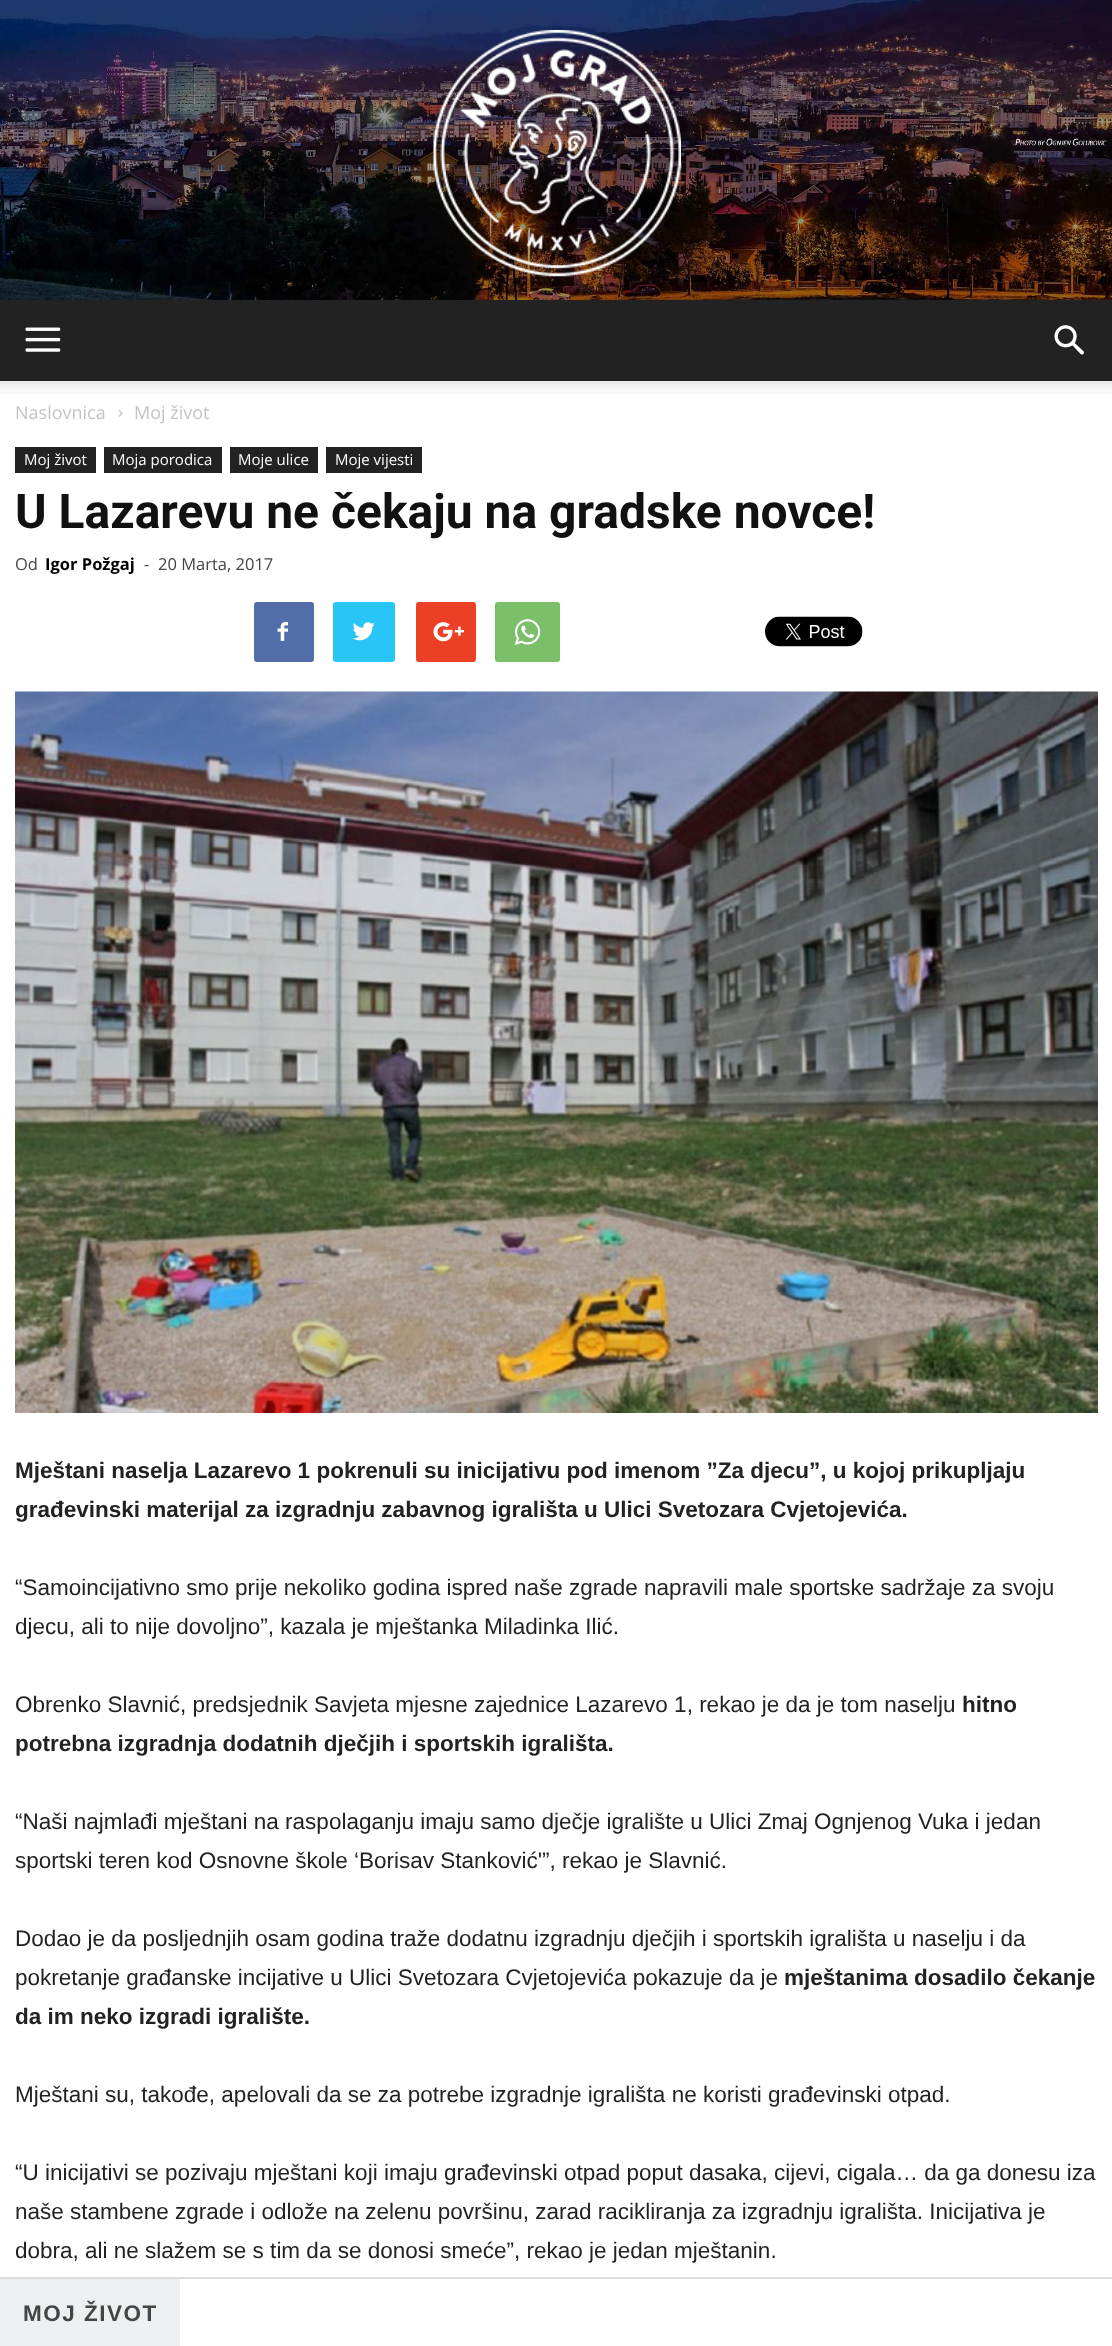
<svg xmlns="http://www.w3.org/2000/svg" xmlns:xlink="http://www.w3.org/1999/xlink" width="1112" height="2346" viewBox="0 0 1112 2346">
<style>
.cls-1{font:18px Open Sans;fill:#c3c3c3}
.cls-2{font:15px Open Sans;fill:#ffffff}
.cls-3{font:bold 48px Roboto;fill:#111111}
.cls-4{font:16.5px Open Sans;fill:#444444}
.cls-5{font:bold 16.5px Open Sans;fill:#000000}
.cls-6{font:bold 22.5px Liberation Sans;fill:#222222}
.cls-7{font:22.5px Liberation Sans;fill:#222222}
.cls-8{font:bold 22.5px Liberation Sans;letter-spacing:1.5px;fill:#444444}
</style>
<rect width="100%" height="100%" fill="#ffffff"/>
<image xlink:href="image0.png" x="0" y="0" width="1112" height="300"/>
<image xlink:href="image1.png" x="433" y="30" width="248" height="247"/>
<rect fill="#222222" x="0" y="300" width="1112" height="81"/>
<image xlink:href="image2.png" x="25" y="327" width="36" height="25"/>
<image xlink:href="image3.png" x="1054" y="325" width="30" height="30"/>
<image xlink:href="image4.png" x="0" y="381" width="1112" height="13"/>
<image xlink:href="image5.png" x="118" y="410" width="5" height="7"/>
<rect fill="#222222" x="15" y="447" width="81" height="26"/>
<rect fill="#222222" x="104" y="447" width="118" height="26"/>
<rect fill="#222222" x="230" y="447" width="88" height="26"/>
<rect fill="#222222" x="326" y="447" width="96" height="26"/>
<rect fill="#516eab" x="254" y="602" width="60" height="60" rx="3"/>
<image xlink:href="image6.png" x="277" y="622" width="11" height="19"/>
<rect fill="#29c5f6" x="333" y="602" width="62" height="60" rx="3"/>
<image xlink:href="image7.png" x="352" y="622" width="23" height="19"/>
<rect fill="#eb4026" x="416" y="602" width="60" height="60" rx="3"/>
<image xlink:href="image8.png" x="433" y="622" width="31" height="20"/>
<rect fill="#7bbf6a" x="495" y="602" width="65" height="60" rx="3"/>
<image xlink:href="image9.png" x="514" y="619" width="27" height="26"/>
<image xlink:href="image10.png" x="765" y="616" width="98" height="31"/>
<image xlink:href="image11.png" x="15" y="691" width="1083" height="722"/>
<rect fill="#dddddd" x="0" y="2277" width="1112" height="2"/>
<rect fill="#ecf0f1" x="0" y="2279" width="180" height="67"/>
<text class="cls-1" x="15" y="419">Naslovnica</text>
<text class="cls-1" x="134" y="419">Moj život</text>
<text class="cls-2" x="24" y="465">Moj život</text>
<text class="cls-2" x="112" y="465">Moja porodica</text>
<text class="cls-2" x="238" y="465">Moje ulice</text>
<text class="cls-2" x="335" y="465">Moje vijesti</text>
<text class="cls-3" x="15" y="528">U Lazarevu ne čekaju na gradske novce!</text>
<text class="cls-4" x="15" y="570">Od</text>
<text class="cls-5" x="45" y="570">Igor Požgaj</text>
<text class="cls-4" x="144" y="570">-</text>
<text class="cls-4" x="158" y="570">20 Marta, 2017</text>
<text class="cls-6"><tspan x="15" y="1478">Mještani naselja Lazarevo 1 pokrenuli su inicijativu pod imenom ”Za djecu”, u kojoj prikupljaju</tspan><tspan x="15" y="1517">građevinski materijal za izgradnju zabavnog igrališta u Ulici Svetozara Cvjetojevića.</tspan></text>
<text class="cls-7"><tspan x="15" y="1595">“Samoincijativno smo prije nekoliko godina ispred naše zgrade napravili male sportske sadržaje za svoju</tspan><tspan x="15" y="1634">djecu, ali to nije dovoljno”, kazala je mještanka Miladinka Ilić.</tspan></text>
<text class="cls-7" x="15" y="1712">Obrenko Slavnić, predsjednik Savjeta mjesne zajednice Lazarevo 1, rekao je da je tom naselju</text>
<text class="cls-6" x="962" y="1712">hitno</text>
<text class="cls-6" x="15" y="1751">potrebna izgradnja dodatnih dječjih i sportskih igrališta.</text>
<text class="cls-7"><tspan x="15" y="1829">“Naši najmlađi mještani na raspolaganju imaju samo dječje igralište u Ulici Zmaj Ognjenog Vuka i jedan</tspan><tspan x="15" y="1868">sportski teren kod Osnovne škole ‘Borisav Stanković'”, rekao je Slavnić.</tspan></text>
<text class="cls-7"><tspan x="15" y="1946">Dodao je da posljednjih osam godina traže dodatnu izgradnju dječjih i sportskih igrališta u naselju i da</tspan><tspan x="15" y="1985">pokretanje građanske incijative u Ulici Svetozara Cvjetojevića pokazuje da je</tspan></text>
<text class="cls-6" x="784" y="1985">mještanima dosadilo čekanje</text>
<text class="cls-6" x="15" y="2024">da im neko izgradi igralište.</text>
<text class="cls-7" x="15" y="2102">Mještani su, takođe, apelovali da se za potrebe izgradnje igrališta ne koristi građevinski otpad.</text>
<text class="cls-7"><tspan x="15" y="2180">“U inicijativi se pozivaju mještani koji imaju građevinski otpad poput dasaka, cijevi, cigala… da ga donesu iza</tspan><tspan x="15" y="2219">naše stambene zgrade i odlože na zelenu površinu, zarad racikliranja za izgradnju igrališta. Inicijativa je</tspan><tspan x="15" y="2258">dobra, ali ne slažem se s tim da se donosi smeće”, rekao je jedan mještanin.</tspan></text>
<text class="cls-8" x="23" y="2321">MOJ ŽIVOT</text>
</svg>
